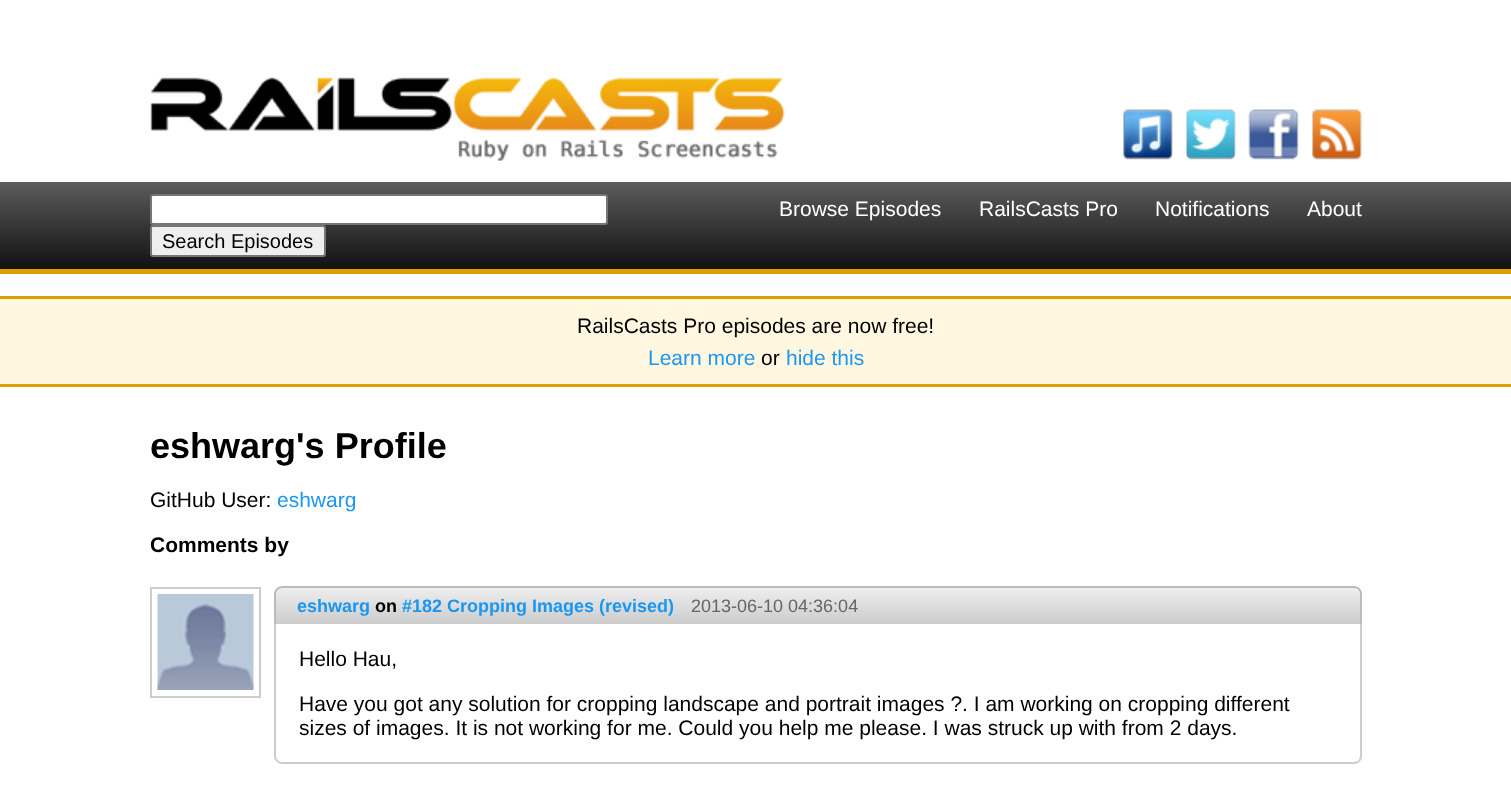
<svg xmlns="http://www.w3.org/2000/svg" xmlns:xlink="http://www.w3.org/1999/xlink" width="1511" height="805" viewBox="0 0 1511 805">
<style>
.cls-1{font:21px Liberation Sans;fill:#ffffff}
.cls-2{font:20px Liberation Sans;fill:#000000}
.cls-3{font:21px Liberation Sans;fill:#000000}
.cls-4{font:21px Liberation Sans;fill:#1b97f2}
.cls-5{font:bold 36px Liberation Sans;fill:#000000}
.cls-6{font:bold 21px Liberation Sans;fill:#000000}
.cls-7{font:bold 18px Liberation Sans;fill:#1b97f2}
.cls-8{font:bold 18px Liberation Sans;fill:#000000}
.cls-9{font:18px Liberation Sans;fill:#666666}
</style>
<defs>
<linearGradient id="g1" gradientUnits="userSpaceOnUse" x1="0" y1="182" x2="0" y2="269"><stop offset="0" stop-color="#5c5c5c"/><stop offset="1" stop-color="#111111"/></linearGradient>
<clipPath id="clip1"><path d="M283 587H1354C1358.5 587 1362 590.5 1362 595V624H275V595C275 590.5 278.5 587 283 587Z"/></clipPath>
<linearGradient id="g2" gradientUnits="userSpaceOnUse" x1="276" y1="588" x2="276" y2="624"><stop offset="0" stop-color="#eeeeee"/><stop offset="1" stop-color="#cccccc"/></linearGradient>
</defs>
<rect width="100%" height="100%" fill="#ffffff"/>
<image xlink:href="image0.png" x="150" y="77" width="635" height="84"/>
<image xlink:href="image1.png" x="1123" y="109" width="50" height="51"/>
<image xlink:href="image2.png" x="1186" y="109" width="50" height="51"/>
<image xlink:href="image3.png" x="1248" y="109" width="51" height="51"/>
<image xlink:href="image4.png" x="1312" y="109" width="50" height="51"/>
<rect fill="url(#g1)" x="0" y="182" width="1511" height="87"/>
<rect fill="#de9f00" x="0" y="269" width="1511" height="5"/>
<rect fill="#ffffff" stroke="#767676" stroke-width="2" x="151" y="195" width="456" height="29" rx="2"/>
<rect fill="#efefef" stroke="#767676" stroke-width="2" x="151" y="226" width="174" height="30" rx="2"/>
<rect fill="#fff7e0" x="0" y="299" width="1511" height="85"/>
<rect fill="#de9f00" x="0" y="296" width="1511" height="3"/>
<rect fill="#de9f00" x="0" y="384" width="1511" height="3"/>
<rect fill="none" stroke="#cccccc" stroke-width="2" x="151" y="588" width="109" height="109"/>
<image xlink:href="image5.png" x="157" y="594" width="97" height="96"/>
<g clip-path="url(#clip1)">
<rect fill="url(#g2)" x="276" y="588" width="1086" height="36"/>
</g>
<path fill="#bbbbbb" fill-rule="evenodd" d="M282 586H1354C1359 586 1362 590 1362 594V624H274V594C274 590 278 586 282 586ZM282 588H1354C1358 588 1360 591 1360 594V624H276V594C276 591 279 588 282 588Z"/>
<path fill="#cccccc" fill-rule="evenodd" d="M274 624H1362V756C1362 760 1359 764 1354 764H282C278 764 274 760 274 756ZM276 624H1360V756C1360 759 1358 762 1354 762H282C279 762 276 759 276 756Z"/>
<text class="cls-1" x="779" y="216">Browse Episodes</text>
<text class="cls-1" x="979" y="216">RailsCasts Pro</text>
<text class="cls-1" x="1155" y="216">Notifications</text>
<text class="cls-1" x="1307" y="216">About</text>
<text class="cls-2" x="162" y="248">Search Episodes</text>
<text class="cls-3" x="577" y="333">RailsCasts Pro episodes are now free!</text>
<text class="cls-4" x="648" y="365">Learn more</text>
<text class="cls-3" x="761" y="365">or</text>
<text class="cls-4" x="786" y="365">hide this</text>
<text class="cls-5" x="150" y="458">eshwarg's Profile</text>
<text class="cls-3" x="150" y="507">GitHub User:</text>
<text class="cls-4" x="277" y="507">eshwarg</text>
<text class="cls-6" x="150" y="552">Comments by</text>
<text class="cls-7" x="297" y="612">eshwarg</text>
<text class="cls-8" x="375" y="612">on</text>
<text class="cls-7" x="402" y="612">#182 Cropping Images (revised)</text>
<text class="cls-9" x="691" y="612">2013-06-10 04:36:04</text>
<text class="cls-3" x="299" y="666">Hello Hau,</text>
<text class="cls-3"><tspan x="299" y="711">Have you got any solution for cropping landscape and portrait images ?. I am working on cropping different</tspan><tspan x="299" y="735">sizes of images. It is not working for me. Could you help me please. I was struck up with from 2 days.</tspan></text>
</svg>
